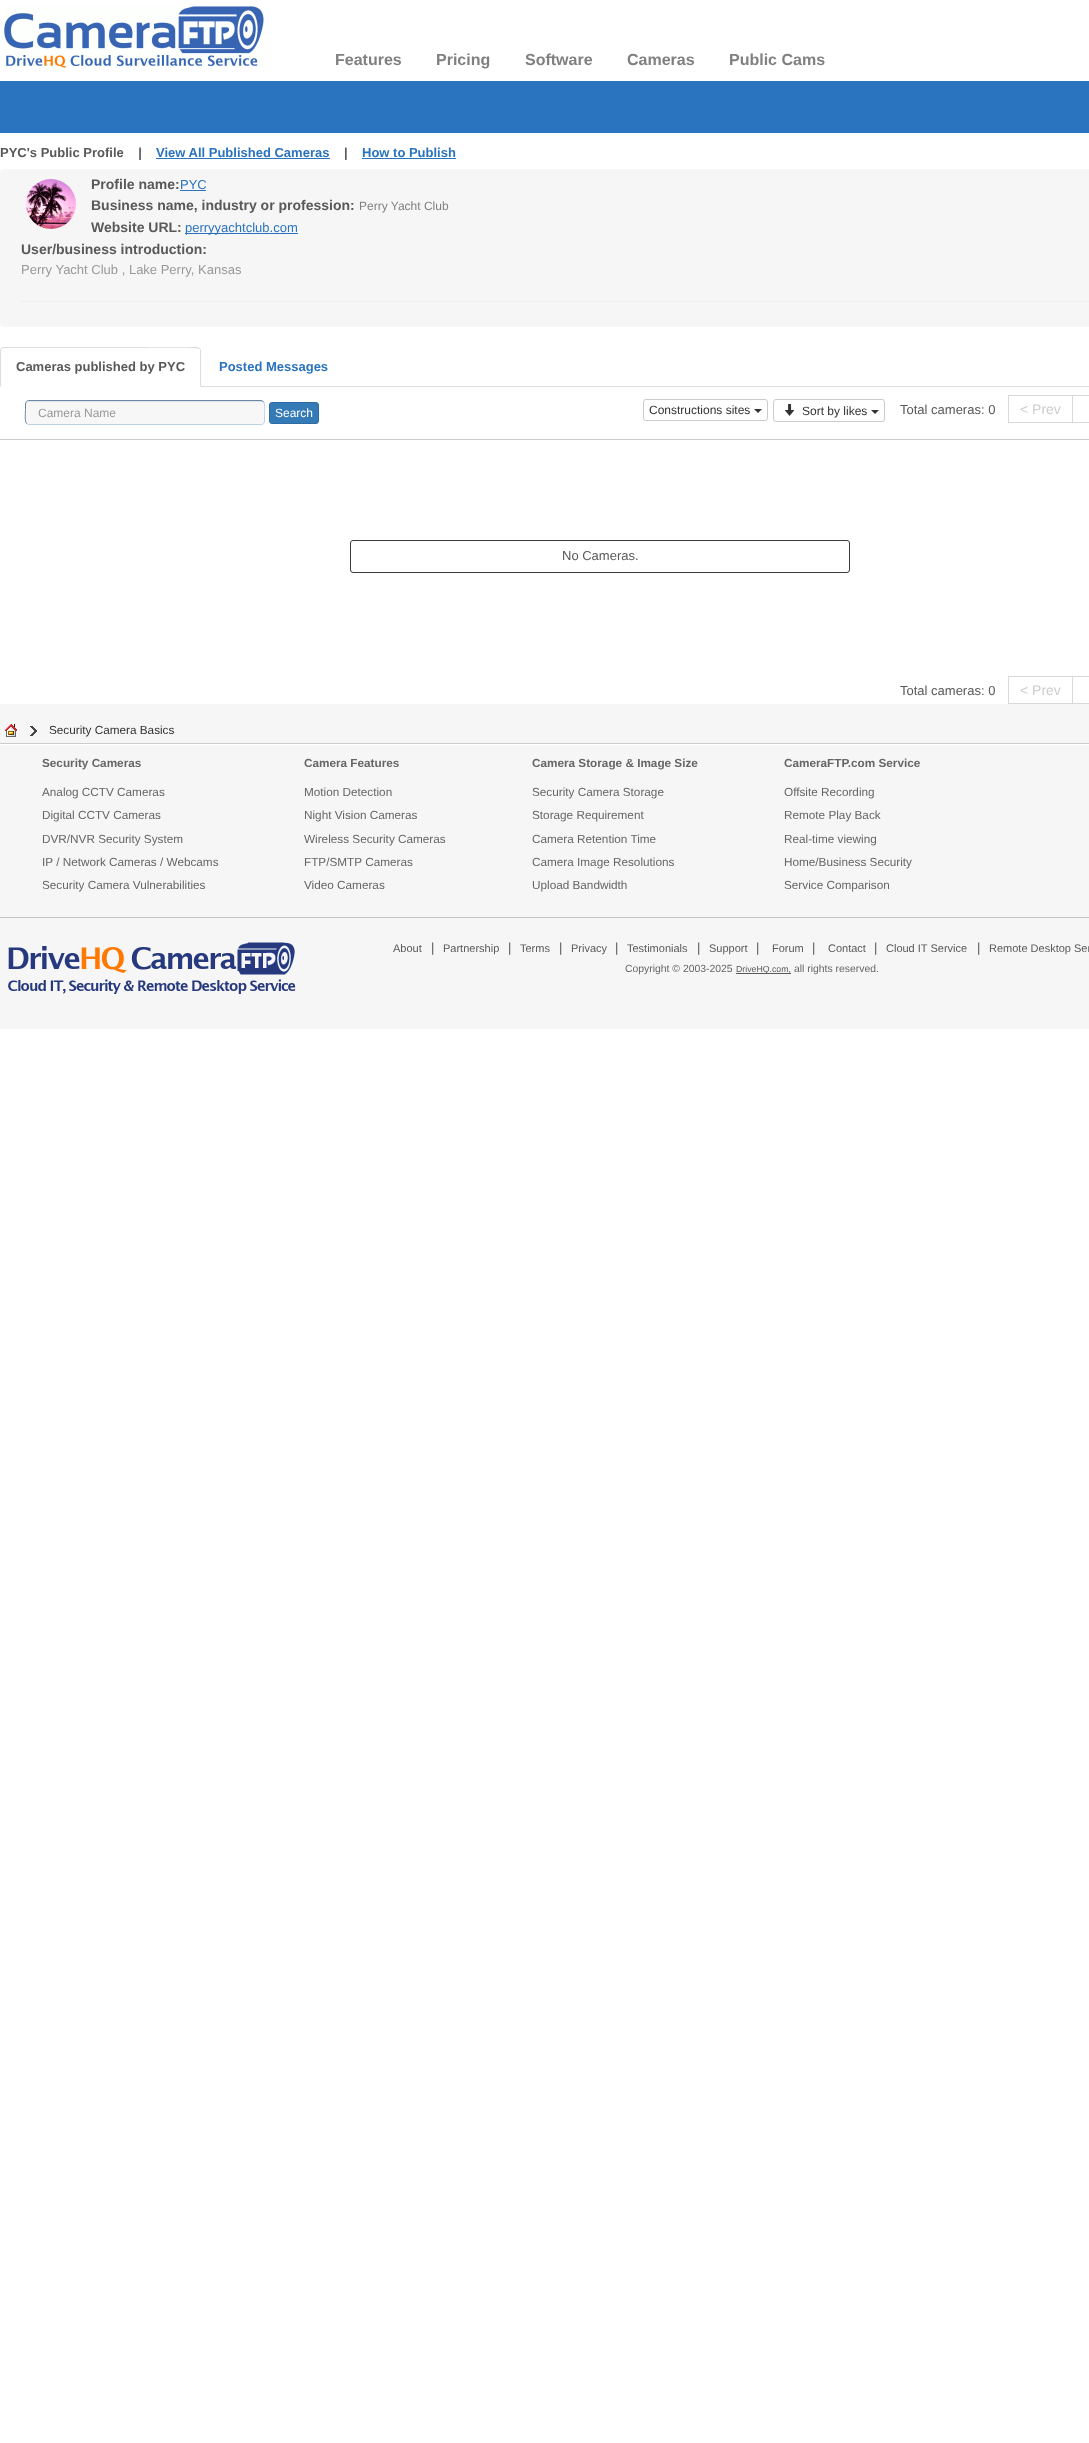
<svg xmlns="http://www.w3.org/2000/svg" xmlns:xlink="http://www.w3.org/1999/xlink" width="1089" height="2443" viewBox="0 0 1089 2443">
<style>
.cls-1{font:bold 16px Liberation Sans;fill:#808080}
.cls-2{font:bold 13px Liberation Sans;fill:#595959}
.cls-3{font:bold 13px Liberation Sans;fill:#2a73be}
.cls-4{font:bold 14px Liberation Sans;fill:#595959}
.cls-5{font:13px Liberation Sans;fill:#2a73be}
.cls-6{font:12px Liberation Sans;fill:#808080}
.cls-7{font:13px Liberation Sans;fill:#999999}
.cls-8{font:12px Liberation Sans;fill:#999999}
.cls-9{font:12px Liberation Sans;fill:#ffffff}
.cls-10{font:12px Liberation Sans;fill:#333333}
.cls-11{font:13px Liberation Sans;fill:#595959}
.cls-12{font:14px Liberation Sans;fill:#cccccc}
.cls-13{font:11.75px Liberation Sans;fill:#333333}
.cls-14{font:bold 11.75px Liberation Sans;fill:#666666}
.cls-15{font:11.75px Liberation Sans;fill:#666666}
.cls-16{font:11px Liberation Sans;fill:#595959}
.cls-17{font:10.4px Liberation Sans;fill:#666666}
.cls-18{font:8.75px Liberation Sans;fill:#595959}
</style>
<rect width="100%" height="100%" fill="#ffffff"/>
<image xlink:href="image0.png" x="4" y="6" width="260" height="62"/>
<rect fill="#2a73be" x="0" y="81" width="1089" height="52"/>
<rect fill="#2a73be" x="156" y="158" width="174" height="1"/>
<rect fill="#2a73be" x="362" y="158" width="94" height="1"/>
<rect fill="#f6f6f6" x="0" y="169" width="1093" height="158" rx="4"/>
<image xlink:href="image1.png" x="26" y="179" width="50" height="50"/>
<rect fill="#2a73be" x="180" y="190" width="26" height="1"/>
<rect fill="#2a73be" x="185" y="233" width="113" height="1"/>
<rect fill="#eeeeee" x="21" y="301" width="1068" height="1"/>
<rect fill="#dddddd" x="201" y="386" width="888" height="1"/>
<path fill="#dddddd" d="M4 347L1 348L2 349L4 348H133C137 348 197 347 199 349L200 348L197 347Z"/>
<path fill="#dddddd" d="M201 387V351C201 350 200.5 349 200 348L199 349C200 349 200 350 200 351V386Z"/>
<path fill="#dddddd" d="M0 387L1 386V351C1 350 1 349 2 349L1 348C.5 349 0 350 0 351Z"/>
<rect fill="#cccccc" x="0" y="439" width="1089" height="1"/>
<rect fill="#f7f7f7" x="25" y="400" width="240" height="25" rx="4"/>
<path fill="#e4e4e4" d="M29 402H262L264 403V405C264 403 263 401 261 401H29C27 401 26 403 26 405C26 403 27 402 29 402Z"/>
<path fill="none" stroke="#bed2e1" d="M263.5 401.5C265.5 404 264.5 412.5 264.5 415.5V418C264.5 420.5 265 424 261.5 424.5H29L26.5 423.5"/>
<path fill="none" stroke="#6487aa" d="M26.5 423.5C24.5 421 25.5 412.5 25.5 409.5V407C25.5 404.5 25 401 28.5 400.5H261L263.5 401.5"/>
<rect fill="#337ab7" stroke="#2e6da4" x="269.5" y="402.5" width="49" height="21" rx="2.5"/>
<rect fill="none" stroke="#cccccc" x="643.5" y="399.5" width="124" height="21" rx="2.5"/>
<path fill="#333333" d="M754 409H762L758 413Z"/>
<rect fill="none" stroke="#cccccc" x="773.5" y="399.5" width="111" height="22" rx="2.5"/>
<image xlink:href="image2.png" x="784" y="404" width="11" height="12"/>
<path fill="#333333" d="M871 410H879L875 414Z"/>
<rect fill="none" stroke="#d9d9d9" x="1008.5" y="395.5" width="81" height="27"/>
<rect fill="#d9d9d9" x="1072" y="396" width="1" height="26"/>
<rect fill="none" stroke="#3c3c3c" x="350.5" y="540.5" width="499" height="32" rx="2.5"/>
<rect fill="none" stroke="#d9d9d9" x="1008.5" y="676.5" width="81" height="27"/>
<rect fill="#d9d9d9" x="1072" y="677" width="1" height="26"/>
<rect fill="#f6f6f6" x="0" y="704" width="1089" height="325"/>
<image xlink:href="image3.png" x="0" y="743" width="1089" height="2"/>
<image xlink:href="image4.png" x="5" y="724" width="12" height="13"/>
<image xlink:href="image5.png" x="30" y="726" width="7" height="10"/>
<rect fill="#c3c3c3" x="0" y="917" width="1089" height="1"/>
<image xlink:href="image6.png" x="8" y="942" width="288" height="52"/>
<rect fill="#595959" x="736" y="973" width="55" height="1"/>
<text class="cls-1" x="335" y="65">Features</text>
<text class="cls-1" x="436" y="65">Pricing</text>
<text class="cls-1" x="525" y="65">Software</text>
<text class="cls-1" x="627" y="65">Cameras</text>
<text class="cls-1" x="729" y="65">Public Cams</text>
<text class="cls-2" xml:space="preserve" x="0" y="157">PYC's Public Profile    |</text>
<text class="cls-3" x="156" y="157">View All Published Cameras</text>
<text class="cls-2" x="344" y="157">|</text>
<text class="cls-3" x="362" y="157">How to Publish</text>
<text class="cls-4" x="91" y="189">Profile name:</text>
<text class="cls-5" x="180" y="189">PYC</text>
<text class="cls-4" x="91" y="210">Business name, industry or profession:</text>
<text class="cls-6" x="359" y="210">Perry Yacht Club</text>
<text class="cls-4" x="91" y="232">Website URL:</text>
<text class="cls-5" x="185" y="232">perryyachtclub.com</text>
<text class="cls-4" x="21" y="254">User/business introduction:</text>
<text class="cls-7" x="21" y="274">Perry Yacht Club , Lake Perry, Kansas</text>
<text class="cls-2" x="16" y="371">Cameras published by PYC</text>
<text class="cls-3" x="219" y="371">Posted Messages</text>
<text class="cls-8" x="38" y="417">Camera Name</text>
<text class="cls-9" x="275" y="417">Search</text>
<text class="cls-10" x="649" y="414">Constructions sites</text>
<text class="cls-10" x="802" y="415">Sort by likes</text>
<text class="cls-11" x="900" y="414">Total cameras: 0</text>
<text class="cls-12" x="1020" y="414">&lt; Prev</text>
<text class="cls-11" x="562" y="560">No Cameras.</text>
<text class="cls-11" x="900" y="695">Total cameras: 0</text>
<text class="cls-12" x="1020" y="695">&lt; Prev</text>
<text class="cls-13" x="49" y="734">Security Camera Basics</text>
<text class="cls-14" x="42" y="767">Security Cameras</text>
<text class="cls-15"><tspan x="42" y="796">Analog CCTV Cameras</tspan><tspan x="42" y="819">Digital CCTV Cameras</tspan></text>
<text class="cls-15"><tspan x="42" y="843">DVR/NVR Security System</tspan><tspan x="42" y="866">IP / Network Cameras / Webcams</tspan><tspan x="42" y="889">Security Camera Vulnerabilities</tspan></text>
<text class="cls-14" x="304" y="767">Camera Features</text>
<text class="cls-15"><tspan x="304" y="796">Motion Detection</tspan><tspan x="304" y="819">Night Vision Cameras</tspan></text>
<text class="cls-15"><tspan x="304" y="843">Wireless Security Cameras</tspan><tspan x="304" y="866">FTP/SMTP Cameras</tspan><tspan x="304" y="889">Video Cameras</tspan></text>
<text class="cls-14" x="532" y="767">Camera Storage &amp; Image Size</text>
<text class="cls-15"><tspan x="532" y="796">Security Camera Storage</tspan><tspan x="532" y="819">Storage Requirement</tspan></text>
<text class="cls-15"><tspan x="532" y="843">Camera Retention Time</tspan><tspan x="532" y="866">Camera Image Resolutions</tspan><tspan x="532" y="889">Upload Bandwidth</tspan></text>
<text class="cls-14" x="784" y="767">CameraFTP.com Service</text>
<text class="cls-15"><tspan x="784" y="796">Offsite Recording</tspan><tspan x="784" y="819">Remote Play Back</tspan></text>
<text class="cls-15"><tspan x="784" y="843">Real-time viewing</tspan><tspan x="784" y="866">Home/Business Security</tspan><tspan x="784" y="889">Service Comparison</tspan></text>
<text class="cls-16" x="393" y="952">About</text>
<text class="cls-11" x="431" y="952">|</text>
<text class="cls-16" x="443" y="952">Partnership</text>
<text class="cls-11" x="508" y="952">|</text>
<text class="cls-16" x="520" y="952">Terms</text>
<text class="cls-11" x="559" y="952">|</text>
<text class="cls-16" x="571" y="952">Privacy</text>
<text class="cls-11" x="615" y="952">|</text>
<text class="cls-16" x="627" y="952">Testimonials</text>
<text class="cls-11" x="697" y="952">|</text>
<text class="cls-16" x="709" y="952">Support</text>
<text class="cls-11" x="756" y="952">|</text>
<text class="cls-16" x="772" y="952">Forum</text>
<text class="cls-11" x="812" y="952">|</text>
<text class="cls-16" x="828" y="952">Contact</text>
<text class="cls-11" x="874" y="952">|</text>
<text class="cls-16" x="886" y="952">Cloud IT Service</text>
<text class="cls-11" x="977" y="952">|</text>
<text class="cls-16" x="989" y="952">Remote Desktop Ser</text>
<text class="cls-17" x="625" y="972">Copyright © 2003-2025</text>
<text class="cls-18" x="736" y="972">DriveHQ.com,</text>
<text class="cls-17" x="794" y="972">all rights reserved.</text>
</svg>
